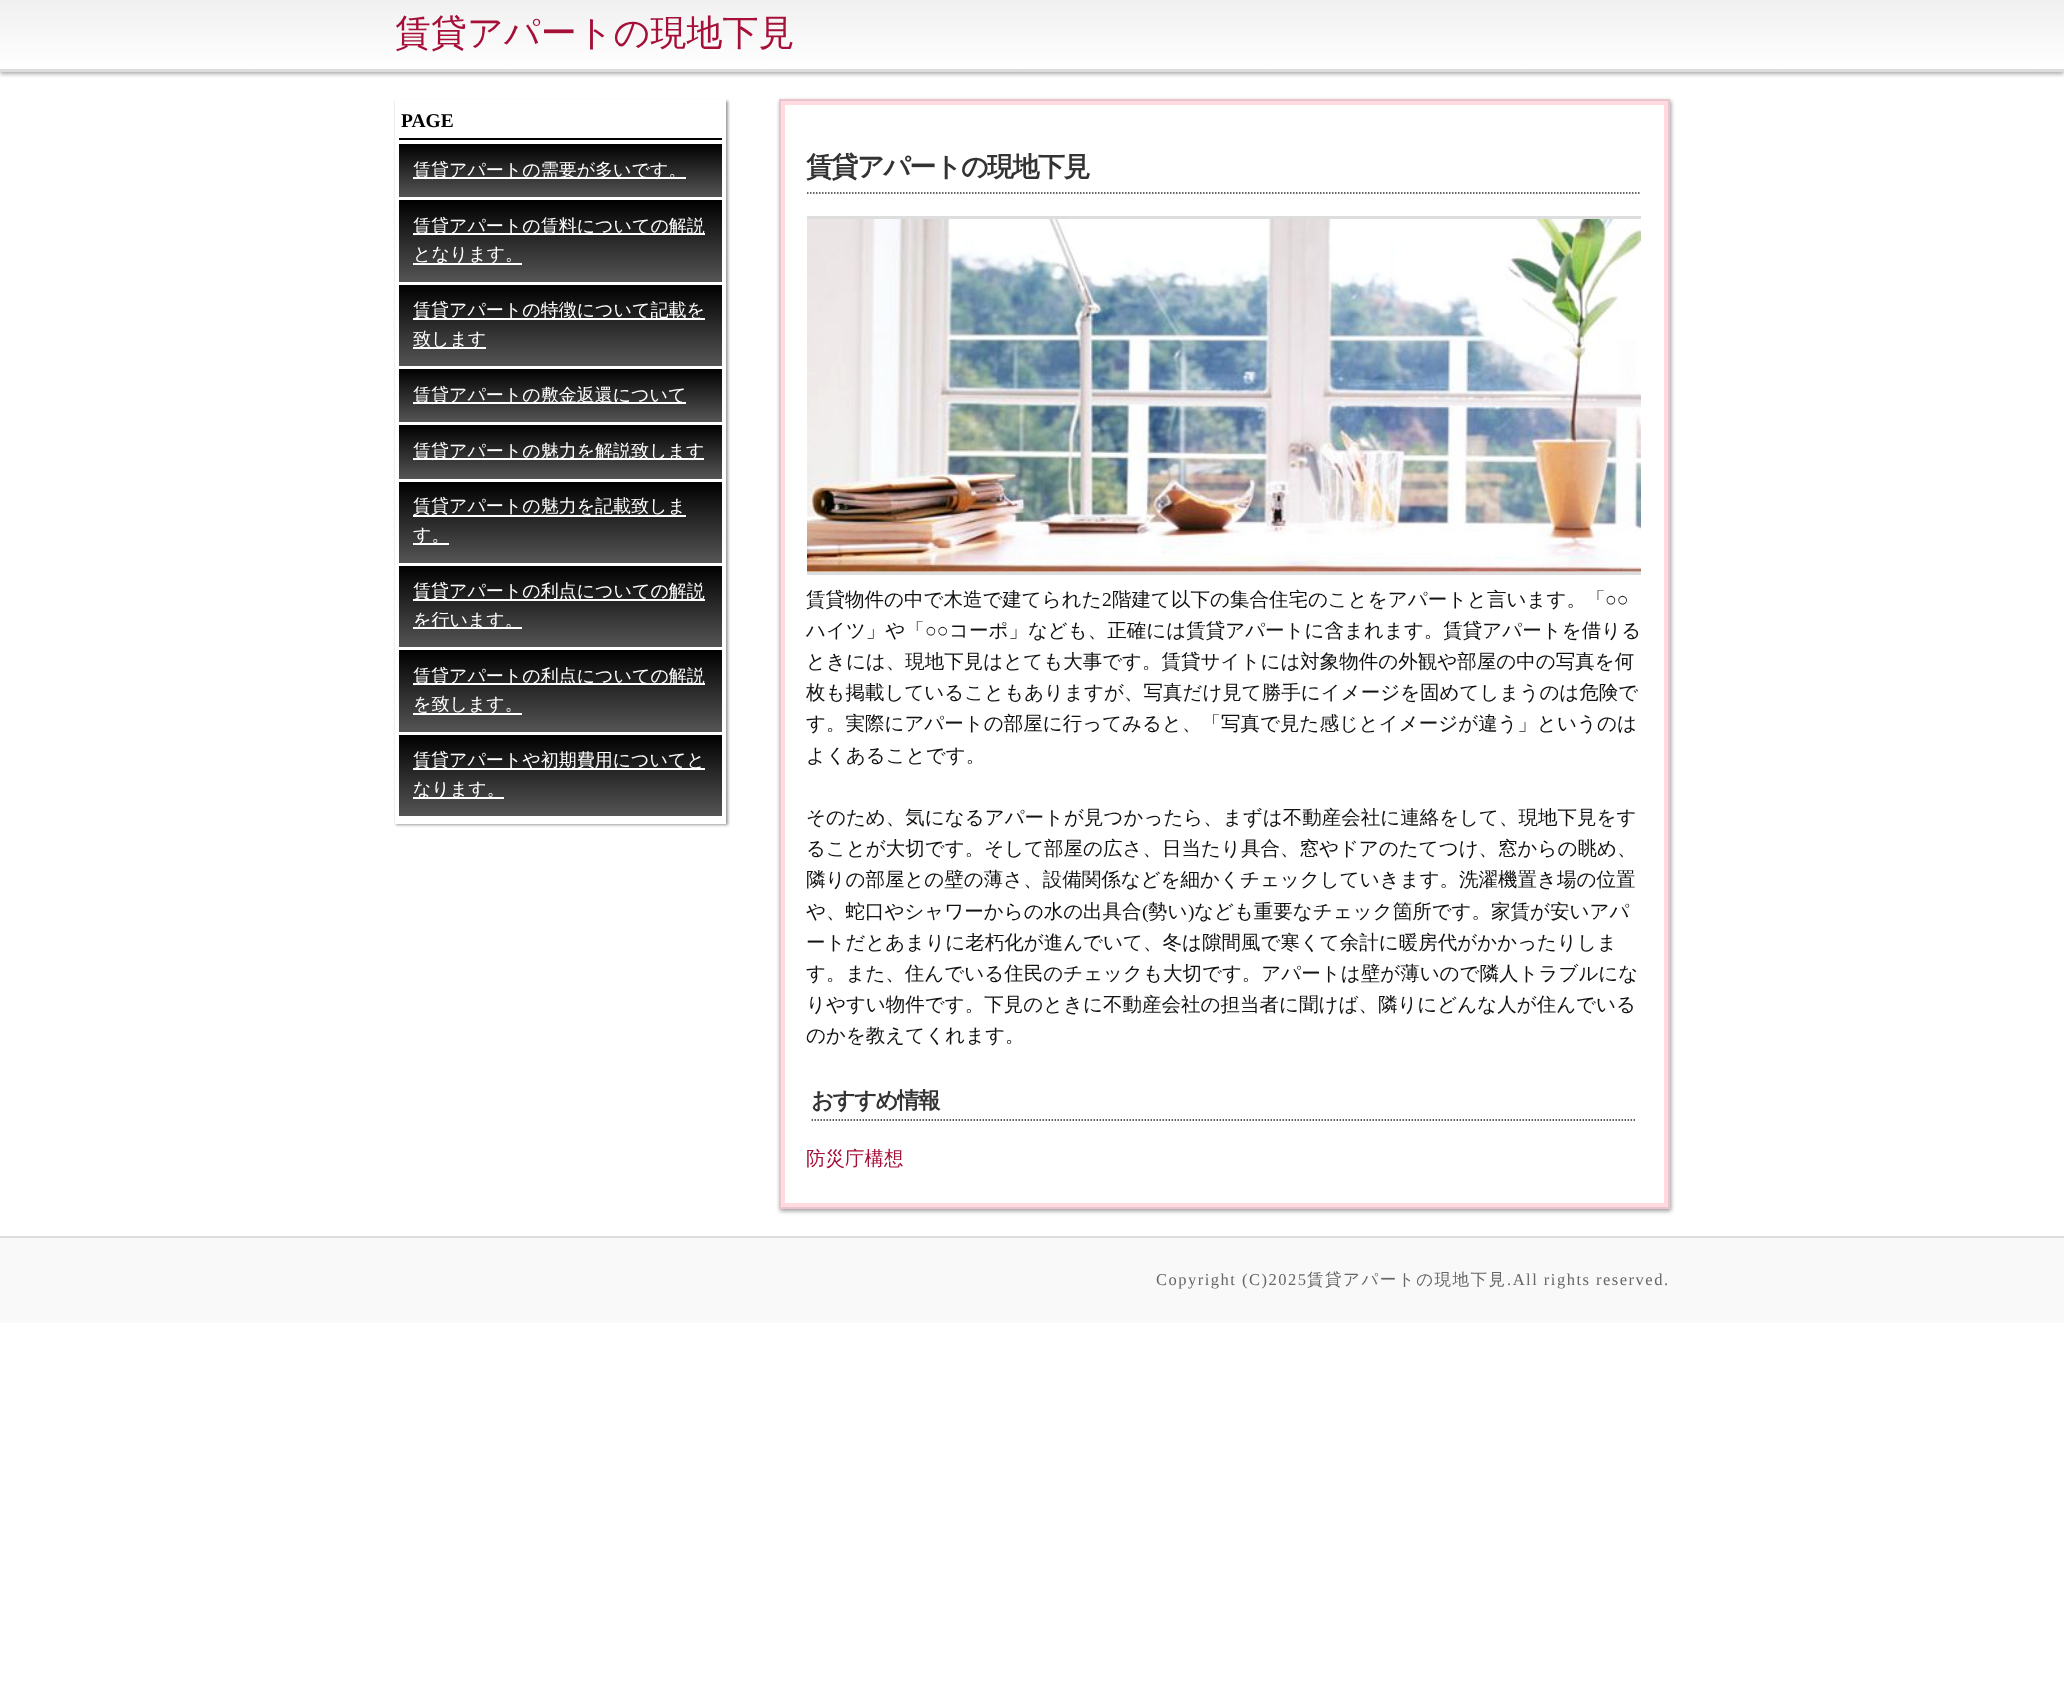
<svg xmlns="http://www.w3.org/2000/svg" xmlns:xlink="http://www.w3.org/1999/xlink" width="2064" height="1688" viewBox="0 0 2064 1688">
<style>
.cls-1{font:500 36px WenQuanYi Zen Hei;fill:#a50f38}
.cls-2{font:bold 19.5px Liberation Serif;fill:#000000}
.cls-3{font:500 18px WenQuanYi Zen Hei;fill:#ffffff}
.cls-4{font:bold 27px WenQuanYi Zen Hei;letter-spacing:-1.5px;fill:#333333}
.cls-5{font:500 19.5px WenQuanYi Zen Hei;fill:#111111}
.cls-6{font:19.5px Liberation Serif;fill:#111111}
.cls-7{font:bold 22.5px WenQuanYi Zen Hei;letter-spacing:-1.5px;fill:#333333}
.cls-8{font:500 19.5px WenQuanYi Zen Hei;fill:#a50f38}
.cls-9{font:16.5px Liberation Serif;letter-spacing:1.5px;fill:#666666}
.cls-10{font:500 16.5px WenQuanYi Zen Hei;letter-spacing:1.5px;fill:#666666}
</style>
<defs>
<linearGradient id="g1" gradientUnits="userSpaceOnUse" x1="1032" y1="0" x2="1032" y2="69"><stop offset="0" stop-color="#f0f0f0"/><stop offset="1" stop-color="#ffffff"/></linearGradient>
<linearGradient id="g2" gradientUnits="userSpaceOnUse" x1="560" y1="144" x2="560" y2="197"><stop offset="0" stop-color="#000000"/><stop offset="1" stop-color="#555555"/></linearGradient>
<linearGradient id="g3" gradientUnits="userSpaceOnUse" x1="560" y1="200" x2="560" y2="282"><stop offset="0" stop-color="#000000"/><stop offset="1" stop-color="#555555"/></linearGradient>
<linearGradient id="g4" gradientUnits="userSpaceOnUse" x1="560" y1="285" x2="560" y2="366"><stop offset="0" stop-color="#000000"/><stop offset="1" stop-color="#555555"/></linearGradient>
<linearGradient id="g5" gradientUnits="userSpaceOnUse" x1="560" y1="369" x2="560" y2="422"><stop offset="0" stop-color="#000000"/><stop offset="1" stop-color="#555555"/></linearGradient>
<linearGradient id="g6" gradientUnits="userSpaceOnUse" x1="560" y1="425" x2="560" y2="479"><stop offset="0" stop-color="#000000"/><stop offset="1" stop-color="#555555"/></linearGradient>
<linearGradient id="g7" gradientUnits="userSpaceOnUse" x1="560" y1="482" x2="560" y2="563"><stop offset="0" stop-color="#000000"/><stop offset="1" stop-color="#555555"/></linearGradient>
<linearGradient id="g8" gradientUnits="userSpaceOnUse" x1="560" y1="566" x2="560" y2="647"><stop offset="0" stop-color="#000000"/><stop offset="1" stop-color="#555555"/></linearGradient>
<linearGradient id="g9" gradientUnits="userSpaceOnUse" x1="560" y1="650" x2="560" y2="732"><stop offset="0" stop-color="#000000"/><stop offset="1" stop-color="#555555"/></linearGradient>
<linearGradient id="g10" gradientUnits="userSpaceOnUse" x1="560" y1="735" x2="560" y2="816"><stop offset="0" stop-color="#000000"/><stop offset="1" stop-color="#555555"/></linearGradient>
</defs>
<rect width="100%" height="100%" fill="#ffffff"/>
<rect fill="#aaaaaa" filter="blur(2px)" x="0" y="2" width="2064" height="72"/>
<rect fill="url(#g1)" x="0" y="0" width="2064" height="69"/>
<rect fill="#dddddd" x="0" y="69" width="2064" height="3"/>
<rect fill="#999999" filter="blur(1.5px)" x="396" y="101" width="332" height="724"/>
<rect fill="#ffffff" x="395" y="99" width="331" height="725"/>
<rect fill="#000000" x="399" y="138" width="323" height="2"/>
<rect fill="url(#g2)" x="399" y="144" width="323" height="53"/>
<rect fill="#ffffff" x="413" y="177" width="273" height="2"/>
<rect fill="url(#g3)" x="399" y="200" width="323" height="82"/>
<rect fill="#ffffff" x="413" y="233" width="292" height="2"/>
<rect fill="#ffffff" x="413" y="263" width="109" height="2"/>
<rect fill="url(#g4)" x="399" y="285" width="323" height="81"/>
<rect fill="#ffffff" x="413" y="318" width="292" height="2"/>
<rect fill="#ffffff" x="413" y="347" width="73" height="2"/>
<rect fill="url(#g5)" x="399" y="369" width="323" height="53"/>
<rect fill="#ffffff" x="413" y="402" width="273" height="2"/>
<rect fill="url(#g6)" x="399" y="425" width="323" height="54"/>
<rect fill="#ffffff" x="413" y="458" width="291" height="2"/>
<rect fill="url(#g7)" x="399" y="482" width="323" height="81"/>
<rect fill="#ffffff" x="413" y="515" width="273" height="2"/>
<rect fill="#ffffff" x="413" y="543" width="36" height="2"/>
<rect fill="url(#g8)" x="399" y="566" width="323" height="81"/>
<rect fill="#ffffff" x="413" y="599" width="292" height="2"/>
<rect fill="#ffffff" x="413" y="627" width="109" height="2"/>
<rect fill="url(#g9)" x="399" y="650" width="323" height="82"/>
<rect fill="#ffffff" x="413" y="683" width="292" height="2"/>
<rect fill="#ffffff" x="413" y="713" width="109" height="2"/>
<rect fill="url(#g10)" x="399" y="735" width="323" height="81"/>
<rect fill="#ffffff" x="413" y="768" width="292" height="2"/>
<rect fill="#ffffff" x="413" y="797" width="91" height="2"/>
<rect fill="#999999" filter="blur(2px)" x="780" y="101" width="891" height="1110"/>
<rect fill="#ffdadf" stroke="#ecc4ce" stroke-width="2" x="780" y="100" width="889" height="1108"/>
<rect fill="#ffffff" x="785" y="105" width="879" height="1098"/>
<path fill="none" stroke="#333333" stroke-width="1.5" stroke-dasharray="1.5 1.5" d="M807 193H1641"/>
<rect fill="#dddddd" x="807" y="216" width="834" height="3"/>
<image xlink:href="image0.png" x="807" y="219" width="834" height="353"/>
<rect fill="#dddddd" x="807" y="572" width="834" height="3"/>
<path fill="none" stroke="#333333" stroke-width="1.5" stroke-dasharray="1.5 1.5" d="M811.5 1120H1636.5"/>
<rect fill="#f9f9f9" x="0" y="1238" width="2064" height="85"/>
<rect fill="#dddddd" x="0" y="1236" width="2064" height="2"/>
<text class="cls-1" x="395" y="45">賃貸アパートの現地下見</text>
<text class="cls-2" x="401" y="127">PAGE</text>
<text class="cls-3" x="413" y="176">賃貸アパートの需要が多いです。</text>
<text class="cls-3"><tspan x="413" y="232">賃貸アパートの賃料についての解説</tspan><tspan x="413" y="260">となります。</tspan></text>
<text class="cls-3"><tspan x="413" y="316">賃貸アパートの特徴について記載を</tspan><tspan x="413" y="345">致します</tspan></text>
<text class="cls-3" x="413" y="401">賃貸アパートの敷金返還について</text>
<text class="cls-3" x="413" y="457">賃貸アパートの魅力を解説致します</text>
<text class="cls-3"><tspan x="413" y="512">賃貸アパートの魅力を記載致しま</tspan><tspan x="413" y="541">す。</tspan></text>
<text class="cls-3"><tspan x="413" y="597">賃貸アパートの利点についての解説</tspan><tspan x="413" y="626">を行います。</tspan></text>
<text class="cls-3"><tspan x="413" y="682">賃貸アパートの利点についての解説</tspan><tspan x="413" y="710">を致します。</tspan></text>
<text class="cls-3"><tspan x="413" y="766">賃貸アパートや初期費用についてと</tspan><tspan x="413" y="795">なります。</tspan></text>
<text class="cls-4" x="806" y="176">賃貸アパートの現地下見</text>
<text class="cls-5" x="806" y="606">賃貸物件の中で木造で建てられた</text>
<text class="cls-6" x="1102" y="606">2</text>
<text class="cls-5" x="1112" y="606">階建て以下の集合住宅のことをアパートと言います。「</text>
<text class="cls-6" x="1605" y="606">○○</text>
<text class="cls-5" x="806" y="637">ハイツ」や「</text>
<text class="cls-6" x="925" y="637">○○</text>
<text class="cls-5" x="949" y="637">コーポ」なども、正確には賃貸アパートに含まれます。賃貸アパートを借りる</text>
<text class="cls-5"><tspan x="806" y="668">ときには、現地下見はとても大事です。賃貸サイトには対象物件の外観や部屋の中の写真を何</tspan><tspan x="806" y="699">枚も掲載していることもありますが、写真だけ見て勝手にイメージを固めてしまうのは危険で</tspan><tspan x="806" y="730">す。実際にアパートの部屋に行ってみると、「写真で見た感じとイメージが違う」というのは</tspan><tspan x="806" y="762">よくあることです。</tspan></text>
<text class="cls-5"><tspan x="806" y="824">そのため、気になるアパートが見つかったら、まずは不動産会社に連絡をして、現地下見をす</tspan><tspan x="806" y="855">ることが大切です。そして部屋の広さ、日当たり具合、窓やドアのたてつけ、窓からの眺め、</tspan><tspan x="806" y="886">隣りの部屋との壁の薄さ、設備関係などを細かくチェックしていきます。洗濯機置き場の位置</tspan><tspan x="806" y="918">や、蛇口やシャワーからの水の出具合</tspan></text>
<text class="cls-6" x="1142" y="918">(</text>
<text class="cls-5" x="1148" y="918">勢い</text>
<text class="cls-6" x="1188" y="918">)</text>
<text class="cls-5" x="1194" y="918">なども重要なチェック箇所です。家賃が安いアパ</text>
<text class="cls-5"><tspan x="806" y="949">ートだとあまりに老朽化が進んでいて、冬は隙間風で寒くて余計に暖房代がかかったりしま</tspan><tspan x="806" y="980">す。また、住んでいる住民のチェックも大切です。アパートは壁が薄いので隣人トラブルにな</tspan><tspan x="806" y="1011">りやすい物件です。下見のときに不動産会社の担当者に聞けば、隣りにどんな人が住んでいる</tspan><tspan x="806" y="1042">のかを教えてくれます。</tspan></text>
<text class="cls-7" x="811" y="1108">おすすめ情報</text>
<text class="cls-8" x="806" y="1165">防災庁構想</text>
<text class="cls-9" x="1156" y="1285">Copyright (C)2025</text>
<text class="cls-10" x="1307" y="1285">賃貸アパートの現地下見</text>
<text class="cls-9" x="1507" y="1285">.All rights reserved.</text>
</svg>
